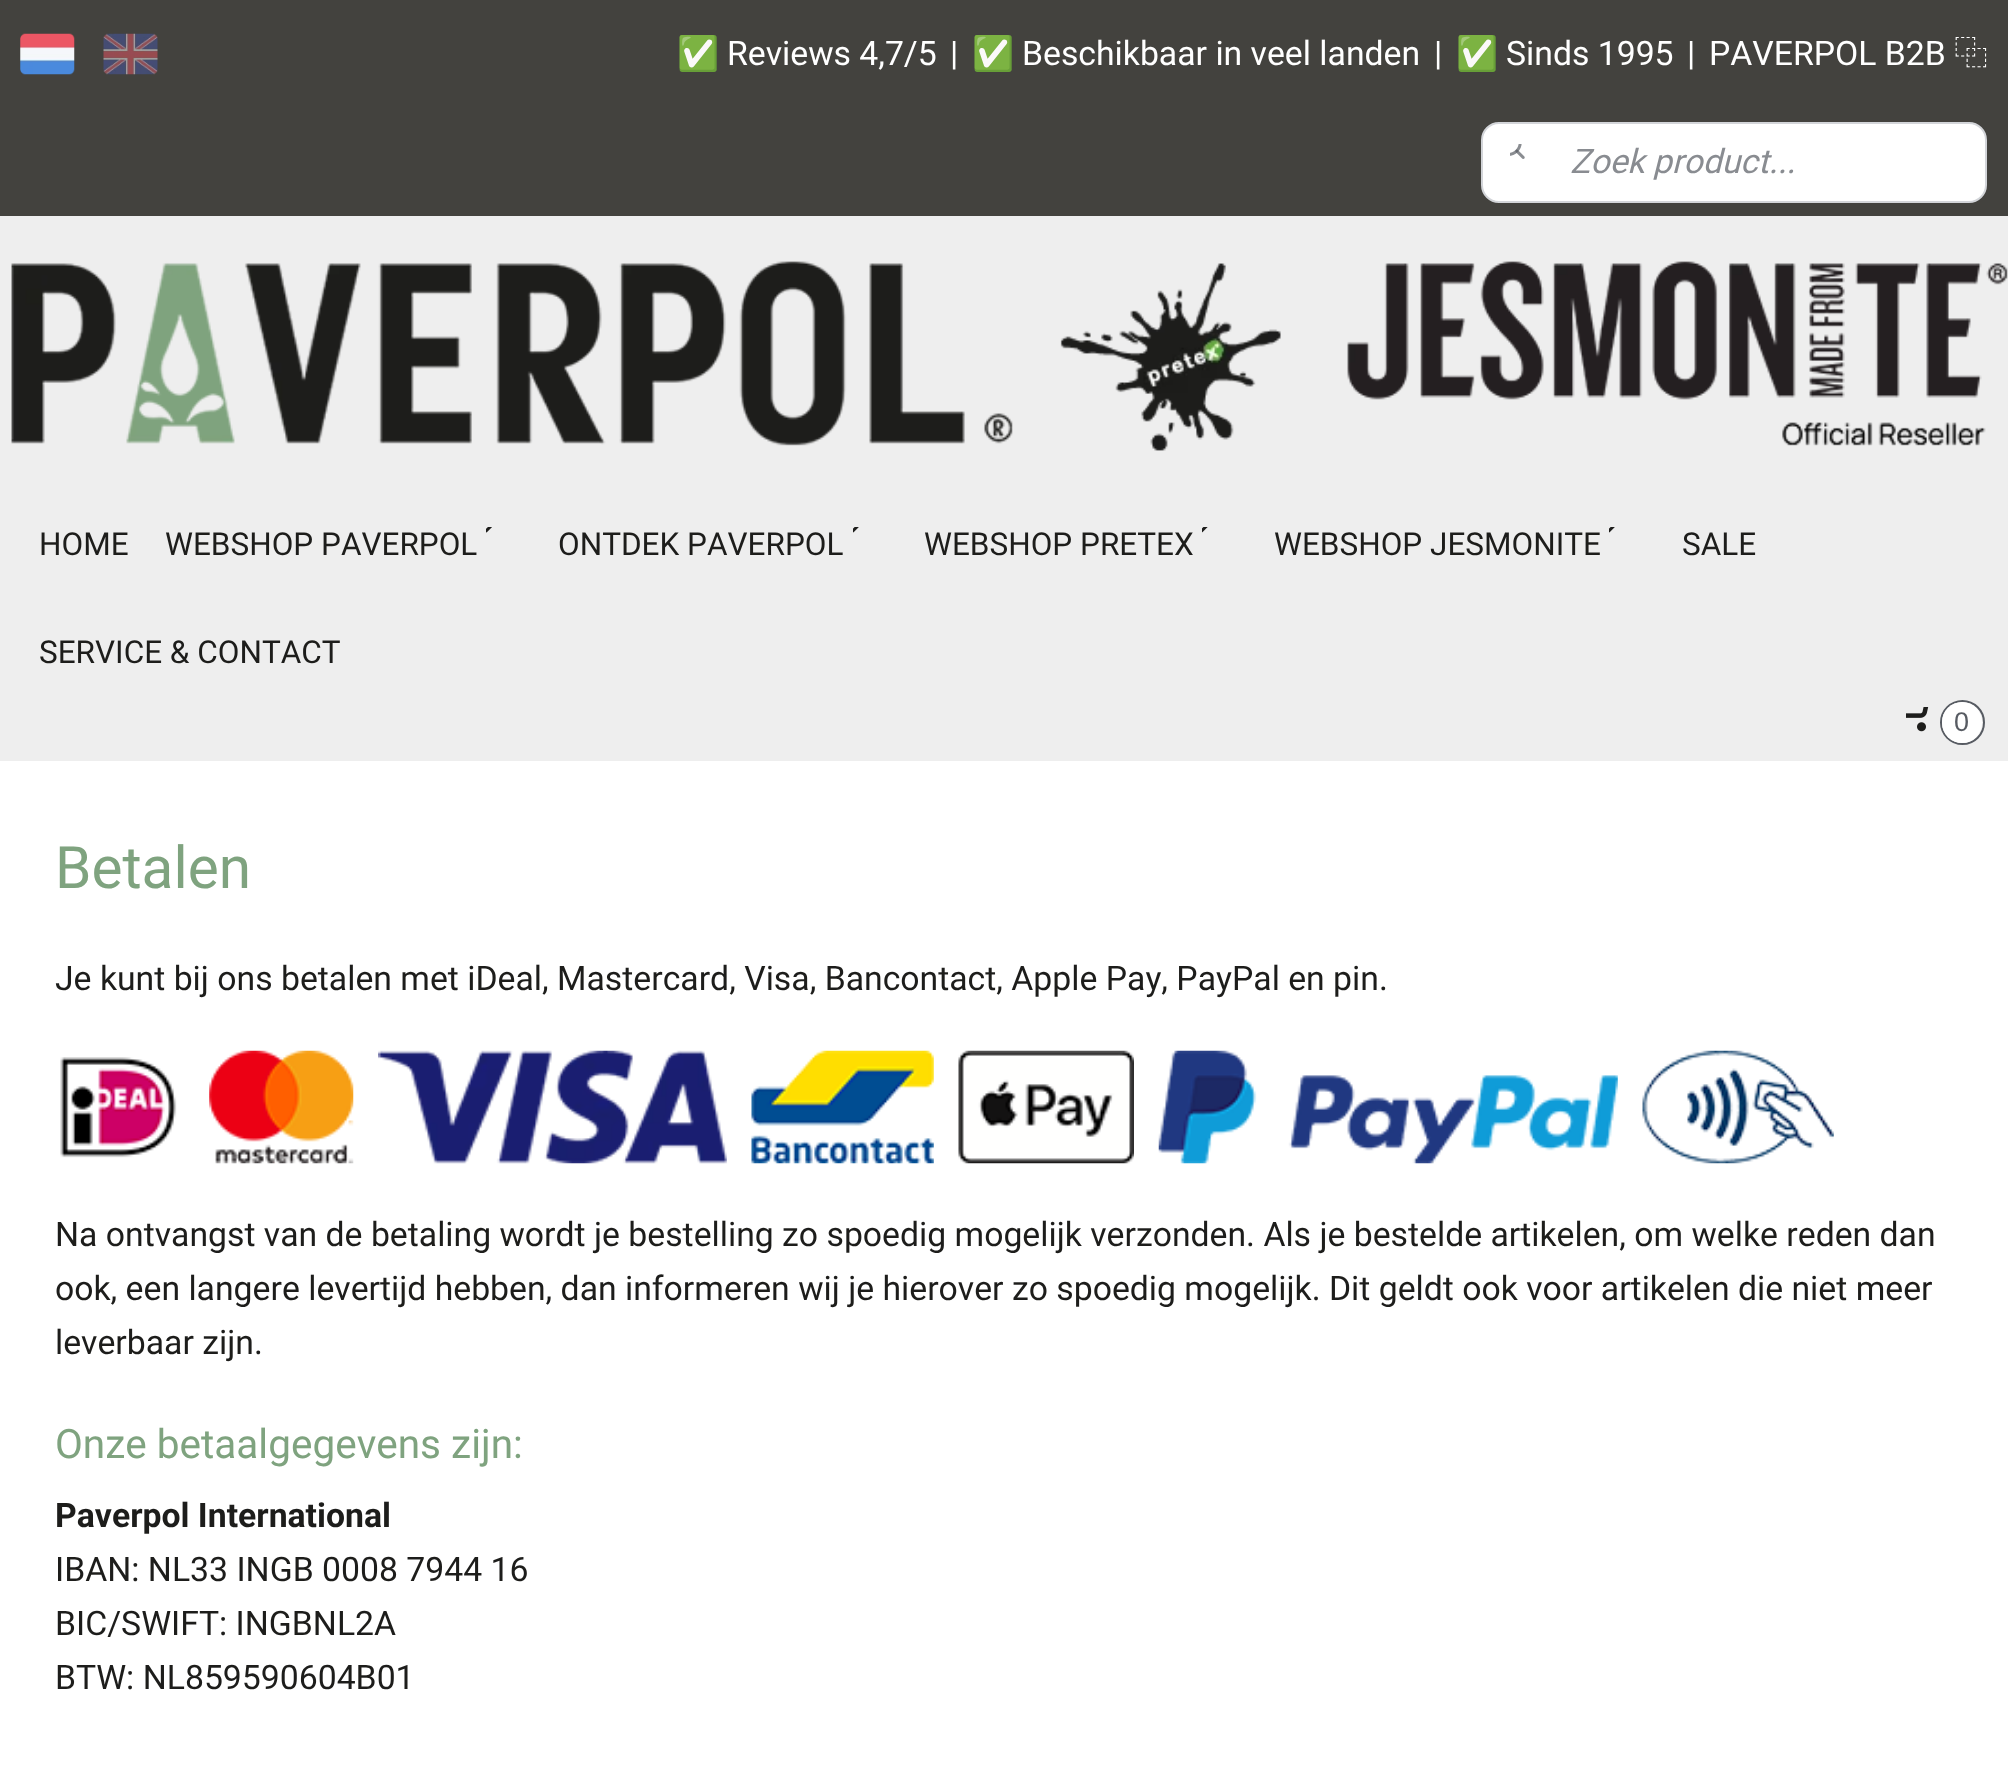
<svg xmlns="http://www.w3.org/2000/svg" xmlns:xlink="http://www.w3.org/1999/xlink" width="2008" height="1773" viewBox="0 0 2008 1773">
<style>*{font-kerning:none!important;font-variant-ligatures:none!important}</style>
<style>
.cls-1{font:33.75px Noto Color Emoji;fill:#ffffff}
.cls-2{font:33.75px Roboto;fill:#ffffff}
.cls-3{font:33.75px Chiron Hei HK;fill:#ffffff}
.cls-4{font:italic 33.75px Roboto;fill:#898c91}
.cls-5{font:31.5px Roboto;fill:#1d1d1b}
.cls-6{font:27px Liberation Sans;fill:#575b62}
.cls-7{font:58.5px Roboto;fill:#7fa37f}
.cls-8{font:33.75px Roboto;fill:#1d1d1b}
.cls-9{font:40.5px Roboto;fill:#7fa37f}
.cls-10{font:bold 33.75px Roboto;fill:#1d1d1b}
</style>
<rect width="100%" height="100%" fill="#ffffff"/>
<rect fill="#eeeeee" x="0" y="216" width="2008" height="545"/>
<rect fill="#43423e" x="0" y="0" width="2008" height="216"/>
<image xlink:href="image0.png" x="20" y="33" width="55" height="42"/>
<image xlink:href="image1.png" x="103" y="33" width="55" height="42"/>
<rect fill="#ffffff" stroke="#d3d5d9" stroke-width="2" x="1482" y="123" width="504" height="79" rx="17"/>
<image xlink:href="image2.png" x="1510" y="144" width="15" height="15"/>
<image xlink:href="image3.png" x="11" y="261" width="1997" height="190"/>
<image xlink:href="image4.png" x="486" y="527" width="6" height="6"/>
<image xlink:href="image5.png" x="853" y="527" width="6" height="6"/>
<image xlink:href="image6.png" x="1202" y="527" width="6" height="6"/>
<image xlink:href="image5.png" x="1609" y="527" width="6" height="6"/>
<image xlink:href="image7.png" x="1906" y="707" width="23" height="25"/>
<circle fill="none" stroke="#575b62" stroke-width="2" cx="1962.5" cy="722.5" r="21.5"/>
<rect fill="#ffffff" x="1942" y="702" width="40" height="41" rx="20"/>
<image xlink:href="image8.png" x="60" y="1057" width="117" height="101"/>
<image xlink:href="image9.png" x="209" y="1050" width="145" height="114"/>
<image xlink:href="image10.png" x="378" y="1050" width="349" height="114"/>
<image xlink:href="image11.png" x="751" y="1050" width="183" height="114"/>
<image xlink:href="image12.png" x="958" y="1050" width="176" height="114"/>
<image xlink:href="image13.png" x="1158" y="1050" width="460" height="114"/>
<image xlink:href="image14.png" x="1642" y="1050" width="192" height="114"/>
<text class="cls-1" x="677" y="65">✅</text>
<text class="cls-2" x="727" y="65">Reviews 4,7/5</text>
<text class="cls-2" x="950" y="65">|</text>
<text class="cls-1" x="972" y="65">✅</text>
<text class="cls-2" x="1022" y="65">Beschikbaar in veel landen</text>
<text class="cls-2" x="1434" y="65">|</text>
<text class="cls-1" x="1456" y="65">✅</text>
<text class="cls-2" x="1506" y="65">Sinds 1995</text>
<text class="cls-2" x="1687" y="65">|</text>
<text class="cls-2" x="1709" y="65">PAVERPOL B2B</text>
<text class="cls-3" x="1954" y="65">⿻</text>
<text class="cls-4" x="1570" y="173">Zoek product...</text>
<text class="cls-5" x="39" y="555">HOME</text>
<text class="cls-5" x="165" y="555">WEBSHOP PAVERPOL</text>
<text class="cls-5" x="558" y="555">ONTDEK PAVERPOL</text>
<text class="cls-5" x="924" y="555">WEBSHOP PRETEX</text>
<text class="cls-5" x="1274" y="555">WEBSHOP JESMONITE</text>
<text class="cls-5" x="1682" y="555">SALE</text>
<text class="cls-5" x="39" y="663">SERVICE &amp; CONTACT</text>
<text class="cls-6" x="1954" y="731">0</text>
<text class="cls-7" x="55" y="888">Betalen</text>
<text class="cls-8" x="55" y="990">Je kunt bij ons betalen met iDeal, Mastercard, Visa, Bancontact, Apple Pay, PayPal en pin.</text>
<text class="cls-8"><tspan x="55" y="1246">Na ontvangst van de betaling wordt je bestelling zo spoedig mogelijk verzonden. Als je bestelde artikelen, om welke reden dan</tspan><tspan x="55" y="1300">ook, een langere levertijd hebben, dan informeren wij je hierover zo spoedig mogelijk. Dit geldt ook voor artikelen die niet meer</tspan><tspan x="55" y="1354">leverbaar zijn.</tspan></text>
<text class="cls-9" x="55" y="1458">Onze betaalgegevens zijn:</text>
<text class="cls-10" x="55" y="1527">Paverpol International</text>
<text class="cls-8"><tspan x="55" y="1581">IBAN: NL33 INGB 0008 7944 16</tspan><tspan x="55" y="1635">BIC/SWIFT: INGBNL2A</tspan><tspan x="55" y="1689">BTW: NL859590604B01</tspan></text>
</svg>
